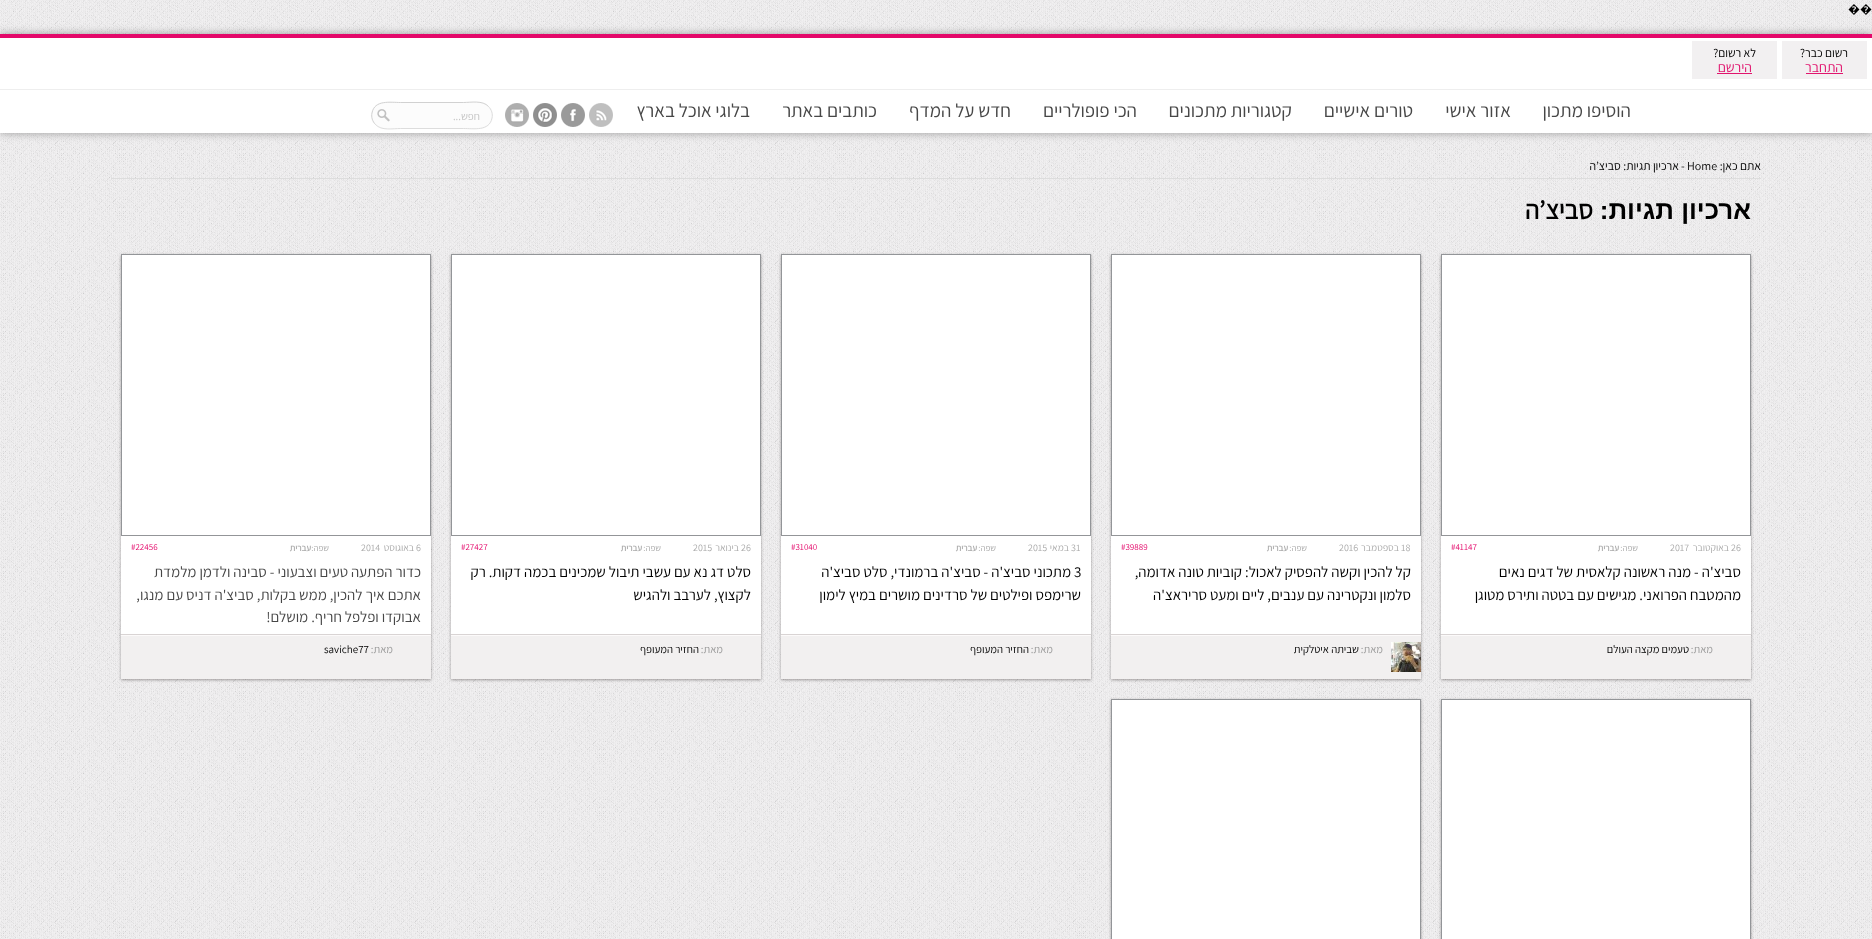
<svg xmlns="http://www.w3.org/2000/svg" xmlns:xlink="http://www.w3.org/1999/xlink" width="1872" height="939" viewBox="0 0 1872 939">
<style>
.cls-1{font:12px Noto Sans;fill:#000000}
.cls-2{font:200 12px Assistant;direction:rtl;fill:#000000}
.cls-3{font:200 14px Assistant;direction:rtl;fill:#e1156e}
.cls-4{font:200 19px Assistant;direction:rtl;fill:#474747}
.cls-5{font:200 11px Assistant;direction:rtl;fill:#c5c5c5}
.cls-6{font:200 12px Assistant;fill:#000000}
.cls-7{font:bold 26px Liberation Sans;direction:rtl;fill:#000000}
.cls-8{font:bold 26px Assistant;direction:rtl;fill:#000000}
.cls-9{font:200 10px Assistant;fill:#aaaaaa}
.cls-10{font:200 10px Assistant;direction:rtl;fill:#aaaaaa}
.cls-11{font:200 9px Assistant;direction:rtl;fill:#aaaaaa}
.cls-12{font:bold 9px Assistant;direction:rtl;fill:#aaaaaa}
.cls-13{font:200 9px Assistant;fill:#e4086a}
.cls-14{font:200 15px Assistant;direction:rtl;fill:#000000}
.cls-15{font:200 11px Assistant;direction:rtl;fill:#999999}
.cls-16{font:200 11px Assistant;direction:rtl;fill:#000000}
.cls-17{font:200 15px Assistant;fill:#000000}
.cls-18{font:200 15px Assistant;direction:rtl;fill:#474747}
.cls-19{font:200 11px Assistant;fill:#000000}
</style>
<rect width="100%" height="100%" fill="#f5f3f4"/>
<image xlink:href="image0.png" x="0" y="0" width="1872" height="939"/>
<rect fill="#999999" filter="blur(4px)" x="0" y="34" width="1872" height="99"/>
<rect fill="#ffffff" x="0" y="38" width="1872" height="95"/>
<rect fill="#e4086a" x="0" y="34" width="1872" height="4"/>
<rect fill="#f2f0f1" x="1782" y="41" width="85" height="38"/>
<rect fill="#e1156e" x="1806" y="73" width="37" height="1"/>
<rect fill="#f2f0f1" x="1692" y="41" width="85" height="38"/>
<rect fill="#e1156e" x="1717" y="73" width="35" height="1"/>
<rect fill="#eeeeee" x="0" y="89" width="1872" height="1"/>
<image xlink:href="image1.png" x="589" y="103" width="24" height="24"/>
<image xlink:href="image2.png" x="561" y="103" width="24" height="24"/>
<image xlink:href="image3.png" x="533" y="103" width="24" height="24"/>
<image xlink:href="image4.png" x="505" y="103" width="24" height="24"/>
<rect fill="#fcfcfc" x="371" y="102" width="122" height="27" rx="13.5"/>
<path fill="none" stroke="#dddddd" d="M488.5 106.5C491.5 109.5 493 114 492 118C489.5 131.5 473.5 128.5 463.5 128.5H400.5C393 128.5 381.5 131 375.5 124.5"/>
<path fill="none" stroke="#d1d1d1" d="M375.5 124.5C372.5 121.5 371 117 372 113C374.5 99.5 390.5 102.5 400.5 102.5H463.5C471 102.5 482.5 100 488.5 106.5"/>
<image xlink:href="image5.png" x="377" y="109" width="13" height="13"/>
<rect fill="#dddddd" x="111" y="178" width="1650" height="1"/>
<rect fill="#221919" fill-opacity="0.4" filter="blur(1.5px)" x="1441" y="255" width="310" height="425"/>
<rect fill="#ffffff" x="1441" y="255" width="310" height="379"/>
<rect fill="none" stroke="#939598" x="1441.5" y="254.5" width="309" height="281"/>
<rect fill="#f2f0f0" x="1441" y="636" width="310" height="43"/>
<rect fill="#fcfafa" x="1441" y="635" width="310" height="1"/>
<rect fill="#d9d4d4" x="1441" y="634" width="310" height="1"/>
<rect fill="#221919" fill-opacity="0.4" filter="blur(1.5px)" x="1111" y="255" width="310" height="425"/>
<rect fill="#ffffff" x="1111" y="255" width="310" height="379"/>
<rect fill="none" stroke="#939598" x="1111.5" y="254.5" width="309" height="281"/>
<rect fill="#f2f0f0" x="1111" y="636" width="310" height="43"/>
<rect fill="#fcfafa" x="1111" y="635" width="310" height="1"/>
<rect fill="#d9d4d4" x="1111" y="634" width="310" height="1"/>
<image xlink:href="image6.png" x="1391" y="642" width="30" height="30"/>
<rect fill="#221919" fill-opacity="0.4" filter="blur(1.5px)" x="781" y="255" width="310" height="425"/>
<rect fill="#ffffff" x="781" y="255" width="310" height="379"/>
<rect fill="none" stroke="#939598" x="781.5" y="254.5" width="309" height="281"/>
<rect fill="#f2f0f0" x="781" y="636" width="310" height="43"/>
<rect fill="#fcfafa" x="781" y="635" width="310" height="1"/>
<rect fill="#d9d4d4" x="781" y="634" width="310" height="1"/>
<rect fill="#221919" fill-opacity="0.4" filter="blur(1.5px)" x="451" y="255" width="310" height="425"/>
<rect fill="#ffffff" x="451" y="255" width="310" height="379"/>
<rect fill="none" stroke="#939598" x="451.5" y="254.5" width="309" height="281"/>
<rect fill="#f2f0f0" x="451" y="636" width="310" height="43"/>
<rect fill="#fcfafa" x="451" y="635" width="310" height="1"/>
<rect fill="#d9d4d4" x="451" y="634" width="310" height="1"/>
<rect fill="#221919" fill-opacity="0.4" filter="blur(1.5px)" x="121" y="255" width="310" height="425"/>
<rect fill="#ffffff" x="121" y="255" width="310" height="379"/>
<rect fill="none" stroke="#939598" x="121.5" y="254.5" width="309" height="281"/>
<rect fill="#f2f0f0" x="121" y="636" width="310" height="43"/>
<rect fill="#fcfafa" x="121" y="635" width="310" height="1"/>
<rect fill="#d9d4d4" x="121" y="634" width="310" height="1"/>
<rect fill="#221919" fill-opacity="0.4" filter="blur(1.5px)" x="1441" y="700" width="310" height="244"/>
<rect fill="#ffffff" stroke="#939598" x="1441.5" y="699.5" width="309" height="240"/>
<rect fill="#221919" fill-opacity="0.4" filter="blur(1.5px)" x="1111" y="700" width="310" height="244"/>
<rect fill="#ffffff" stroke="#939598" x="1111.5" y="699.5" width="309" height="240"/>
<text class="cls-1" x="1848" y="13">��</text>
<text class="cls-2" x="1848" y="57">רשום כבר?</text>
<text class="cls-3" x="1843" y="72">התחבר</text>
<text class="cls-2" x="1756" y="57">לא רשום?</text>
<text class="cls-3" x="1752" y="72">הירשם</text>
<text class="cls-4" x="1631" y="117">הוסיפו מתכון</text>
<text class="cls-4" x="1511" y="117">אזור אישי</text>
<text class="cls-4" x="1413" y="117">טורים אישיים</text>
<text class="cls-4" x="1292" y="117">קטגוריות מתכונים</text>
<text class="cls-4" x="1137" y="117">הכי פופולריים</text>
<text class="cls-4" x="1011" y="117">חדש על המדף</text>
<text class="cls-4" x="877" y="117">כותבים באתר</text>
<text class="cls-4" x="750" y="117">בלוגי אוכל בארץ</text>
<text class="cls-5" x="480" y="120">חפש...</text>
<text class="cls-2" x="1761" y="170">אתם כאן:</text>
<text class="cls-6" x="1687" y="170">Home</text>
<text class="cls-6" x="1681" y="170">-</text>
<text class="cls-2" x="1679" y="170">ארכיון תגיות: סביצ’ה</text>
<text class="cls-7" x="1751" y="219">ארכיון תגיות:</text>
<text class="cls-8" x="1593" y="219">סביצ’ה</text>
<text class="cls-9" x="1731" y="551">26</text>
<text class="cls-10" x="1729" y="551">באוקטובר</text>
<text class="cls-9" x="1670" y="551">2017</text>
<text class="cls-11" x="1638" y="551">שפה:</text>
<text class="cls-12" x="1619" y="551">עברית</text>
<text class="cls-13" x="1451" y="550">#41147</text>
<text class="cls-14"><tspan x="1741" y="577">סביצ'ה - מנה ראשונה קלאסית של דגים נאים</tspan><tspan x="1741" y="600">מהמטבח הפרואני. מגישים עם בטטה ותירס מטוגן</tspan></text>
<text class="cls-15" x="1713" y="653">מאת:</text>
<text class="cls-16" x="1689" y="653">טעמים מקצה העולם</text>
<text class="cls-9" x="1401" y="551">18</text>
<text class="cls-10" x="1399" y="551">בספטמבר</text>
<text class="cls-9" x="1339" y="551">2016</text>
<text class="cls-11" x="1307" y="551">שפה:</text>
<text class="cls-12" x="1288" y="551">עברית</text>
<text class="cls-13" x="1121" y="550">#39889</text>
<text class="cls-14"><tspan x="1411" y="577">קל להכין וקשה להפסיק לאכול: קוביות טונה אדומה,</tspan><tspan x="1411" y="600">סלמון ונקטרינה עם ענבים, ליים ומעט סריראצ'ה</tspan></text>
<text class="cls-15" x="1383" y="653">מאת:</text>
<text class="cls-16" x="1359" y="653">שביתה איטלקית</text>
<text class="cls-9" x="1071" y="551">31</text>
<text class="cls-10" x="1069" y="551">במאי</text>
<text class="cls-9" x="1028" y="551">2015</text>
<text class="cls-11" x="996" y="551">שפה:</text>
<text class="cls-12" x="977" y="551">עברית</text>
<text class="cls-13" x="791" y="550">#31040</text>
<text class="cls-17" x="1074" y="577">3</text>
<text class="cls-14" x="1071" y="577">מתכוני סביצ'ה - סביצ'ה ברמונדי, סלט סביצ'ה</text>
<text class="cls-14" x="1081" y="600">שרימפס ופילטים של סרדינים מושרים במיץ לימון</text>
<text class="cls-15" x="1053" y="653">מאת:</text>
<text class="cls-16" x="1029" y="653">החזיר המעופף</text>
<text class="cls-9" x="741" y="551">26</text>
<text class="cls-10" x="739" y="551">בינואר</text>
<text class="cls-9" x="693" y="551">2015</text>
<text class="cls-11" x="661" y="551">שפה:</text>
<text class="cls-12" x="642" y="551">עברית</text>
<text class="cls-13" x="461" y="550">#27427</text>
<text class="cls-14"><tspan x="751" y="577">סלט דג נא עם עשבי תיבול שמכינים בכמה דקות. רק</tspan><tspan x="751" y="600">לקצוץ, לערבב ולהגיש</tspan></text>
<text class="cls-15" x="723" y="653">מאת:</text>
<text class="cls-16" x="699" y="653">החזיר המעופף</text>
<text class="cls-9" x="416" y="551">6</text>
<text class="cls-10" x="414" y="551">באוגוסט</text>
<text class="cls-9" x="361" y="551">2014</text>
<text class="cls-11" x="329" y="551">שפה:</text>
<text class="cls-12" x="311" y="551">עברית</text>
<text class="cls-13" x="131" y="550">#22456</text>
<text class="cls-18"><tspan x="421" y="577">כדור הפתעה טעים וצבעוני - סבינה ולדמן מלמדת</tspan><tspan x="421" y="600">אתכם איך להכין, ממש בקלות, סביצ'ה דניס עם מנגו,</tspan><tspan x="421" y="622">אבוקדו ופלפל חריף. מושלם!</tspan></text>
<text class="cls-15" x="393" y="653">מאת:</text>
<text class="cls-19" x="324" y="653">saviche77</text>
</svg>
